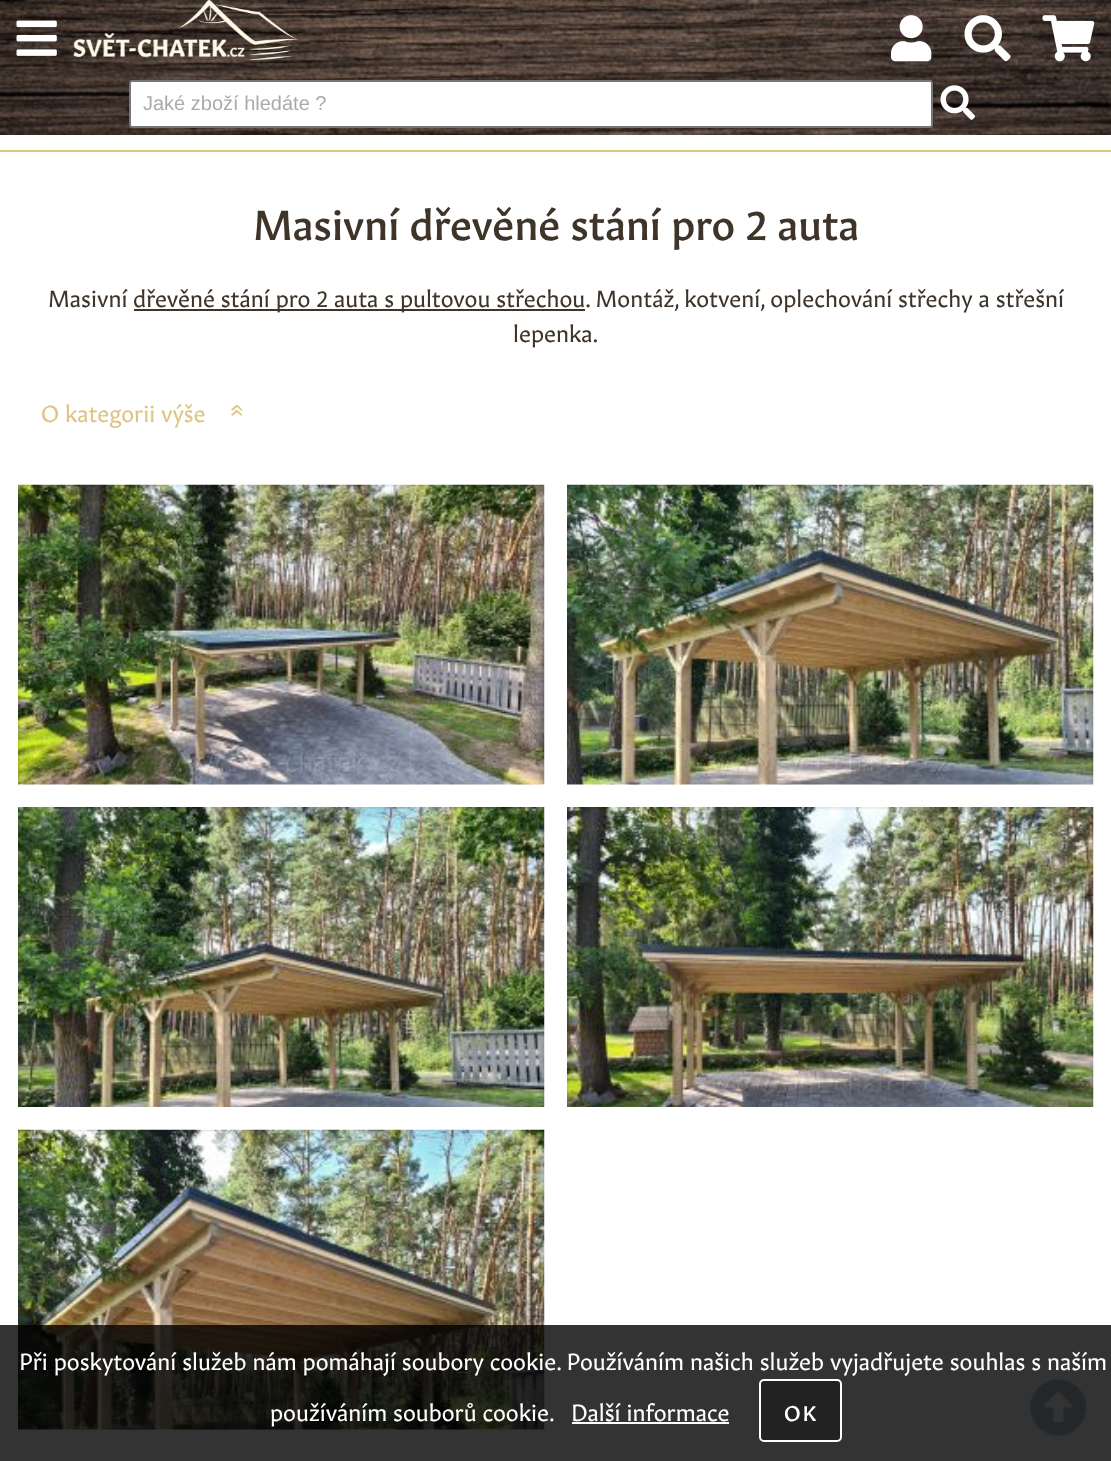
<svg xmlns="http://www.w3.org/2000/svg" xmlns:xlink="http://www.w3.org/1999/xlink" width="1111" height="1461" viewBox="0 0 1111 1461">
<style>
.cls-1{font:20px Liberation Sans;fill:#aaaaaa}
.cls-2{font:500 41.5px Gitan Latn;fill:#3e3429}
.cls-3{font:23.05px Gitan Latn;fill:#3e3429}
.cls-4{font:23.05px Gitan Latn;fill:#dfc483}
.cls-5{font:23.05px Gitan Latn;fill:#ffffff}
.cls-6{font:500 21px Gitan Latn;letter-spacing:2px;fill:#ffffff}
</style>
<rect width="100%" height="100%" fill="#ffffff"/>
<image xlink:href="image0.png" x="0" y="0" width="1111" height="135"/>
<image xlink:href="image1.png" x="16" y="20" width="41" height="36"/>
<image xlink:href="image2.png" x="73" y="0" width="226" height="60"/>
<image xlink:href="image3.png" x="891" y="15" width="41" height="47"/>
<image xlink:href="image4.png" x="964" y="15" width="47" height="47"/>
<image xlink:href="image5.png" x="1042" y="15" width="53" height="47"/>
<rect fill="#ffffff" stroke="#767676" stroke-width="2" x="130" y="81" width="802" height="46" rx="2"/>
<image xlink:href="image6.png" x="940" y="85" width="35" height="35"/>
<rect fill="#dfc483" x="0" y="150" width="1111" height="2"/>
<rect fill="#3e3429" x="134" y="309" width="451" height="2"/>
<image xlink:href="image7.png" x="18" y="484" width="527" height="301"/>
<image xlink:href="image8.png" x="567" y="484" width="527" height="301"/>
<image xlink:href="image9.png" x="18" y="807" width="527" height="300"/>
<image xlink:href="image10.png" x="567" y="807" width="527" height="300"/>
<image xlink:href="image11.png" x="18" y="1129" width="527" height="301"/>
<image xlink:href="image12.png" x="1029" y="1378" width="59" height="58"/>
<rect fill="#000000" fill-opacity="0.8" x="0" y="1325" width="1111" height="136"/>
<rect fill="#ffffff" x="572" y="1422" width="157" height="2"/>
<rect fill="#222222" stroke="#ffffff" stroke-width="2" x="760" y="1380" width="81" height="61" rx="4"/>
<text class="cls-1" x="143" y="110">Jaké zboží hledáte ?</text>
<text class="cls-2" x="253" y="240">Masivní dřevěné stání pro 2 auta</text>
<text class="cls-3" x="48" y="307">Masivní</text>
<text class="cls-3" x="133" y="307">dřevěné stání pro 2 auta s pultovou střechou. Montáž, kotvení, oplechování střechy a střešní</text>
<text class="cls-3" x="513" y="342">lepenka.</text>
<text class="cls-4" x="41" y="422">O kategorii výše</text>
<text class="cls-4" x="231" y="404" transform="rotate(90 231 404)">«</text>
<text class="cls-5" x="19" y="1370">Při poskytování služeb nám pomáhají soubory cookie. Používáním našich služeb vyjadřujete souhlas s naším</text>
<text class="cls-5" x="270" y="1421">používáním souborů cookie.</text>
<text class="cls-5" x="571" y="1421">Další informace</text>
<text class="cls-6" x="784" y="1421">OK</text>
</svg>
